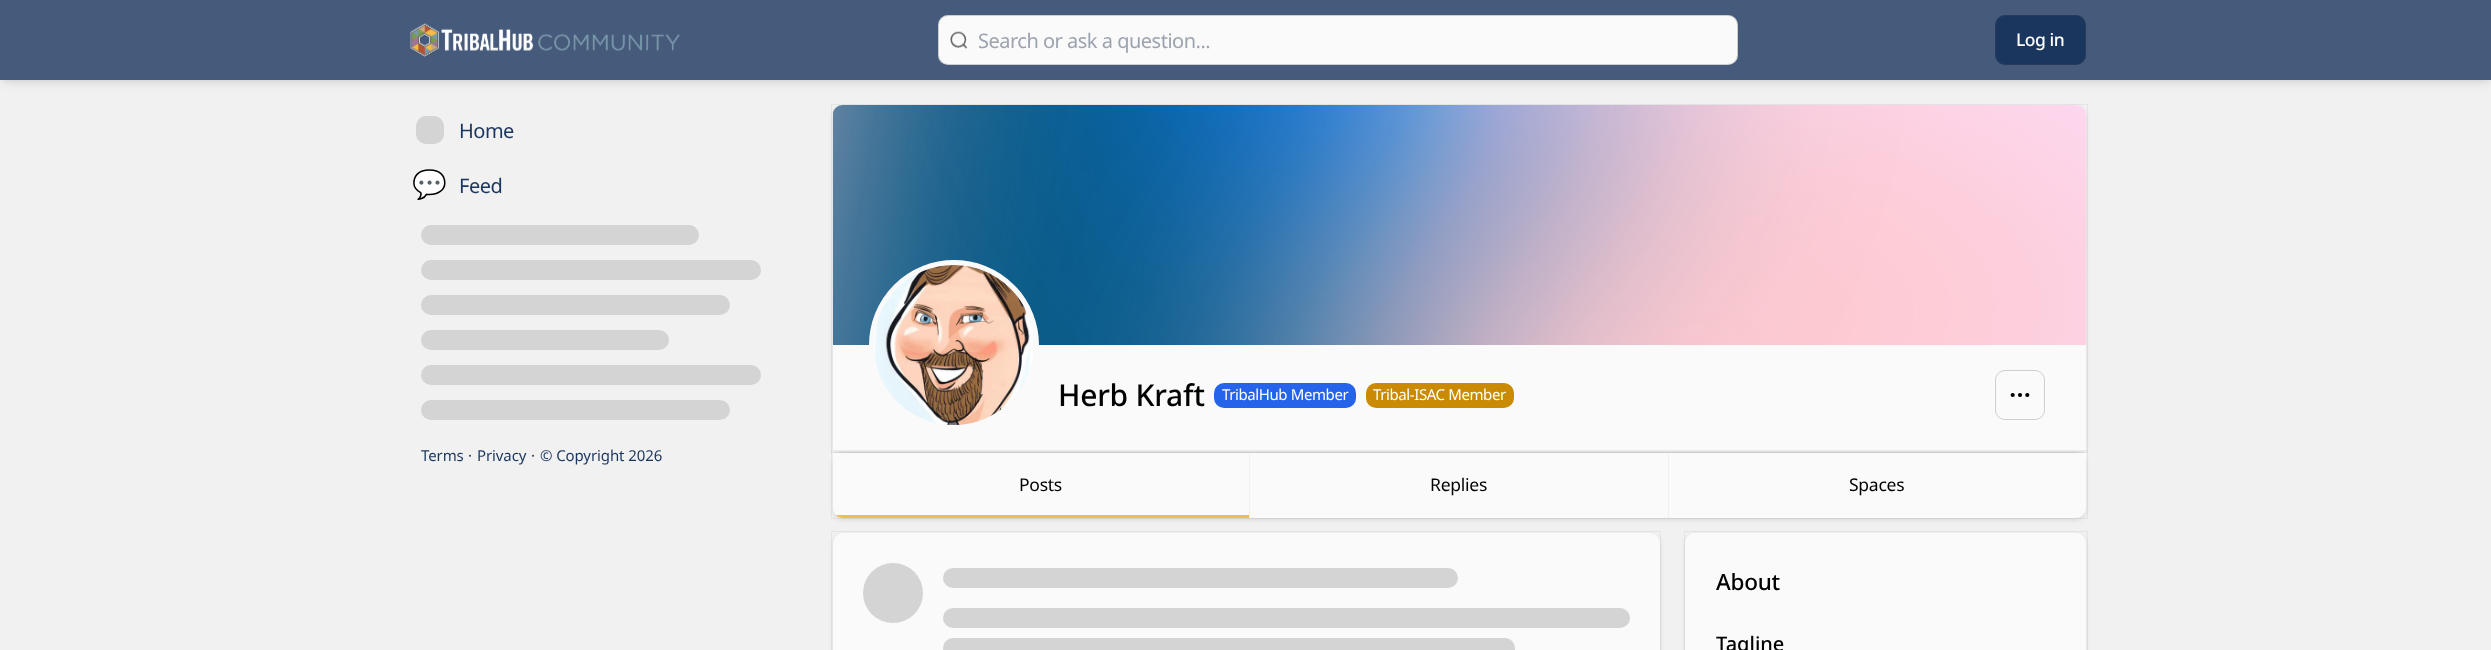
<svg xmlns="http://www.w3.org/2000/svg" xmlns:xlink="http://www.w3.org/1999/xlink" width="2491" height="650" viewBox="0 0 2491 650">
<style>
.cls-1{font:20px Noto Sans;letter-spacing:-0.5px;fill:#9ca3af}
.cls-2{font:500 17.5px Noto Sans;letter-spacing:-0.5px;fill:#ffffff}
.cls-3{font:20px Noto Sans;letter-spacing:-0.5px;fill:#1b365e}
.cls-4{font:28px Noto Color Emoji;letter-spacing:-0.25px;fill:#000000}
.cls-5{font:15px Noto Sans;letter-spacing:-0.1px;fill:#1b365e}
.cls-6{font:500 30px Noto Sans;letter-spacing:-0.25px;fill:#000000}
.cls-7{font:15px Noto Sans;letter-spacing:-0.4px;fill:#ffffff}
.cls-8{font:17.5px Noto Sans;letter-spacing:-0.25px;fill:#000000}
.cls-9{font:500 22.5px Noto Sans;letter-spacing:-0.25px;fill:#000000}
.cls-10{font:500 20px Noto Sans;fill:#000000}
</style>
<defs>
<clipPath id="clip1"><path d="M833 453H2086V508C2086 513.5 2081.5 518 2076 518H843C837.5 518 833 513.5 833 508Z"/></clipPath>
</defs>
<rect width="100%" height="100%" fill="#f1f1f1"/>
<rect fill="#101828" fill-opacity="0.06" filter="blur(2.5px)" x="3" y="5" width="2486" height="75"/>
<rect fill="#101828" fill-opacity="0.1" filter="blur(5px)" x="3" y="8" width="2486" height="75"/>
<rect fill="#465b7b" x="0" y="0" width="2491" height="80"/>
<image xlink:href="image0.png" x="410" y="23" width="270" height="34"/>
<rect fill="#fafafa" x="938" y="15" width="800" height="50" rx="10"/>
<rect fill="none" stroke="#4b4b4b" stroke-opacity="0.25" x="938.5" y="15.5" width="799" height="49" rx="9.5"/>
<image xlink:href="image1.png" x="950" y="31" width="17" height="18"/>
<rect fill="#1b365e" x="1995" y="15" width="91" height="50" rx="10"/>
<rect fill="none" stroke="#4b4b4b" stroke-opacity="0.25" x="1995.5" y="15.5" width="90" height="49" rx="9.5"/>
<rect fill="#d4d4d4" x="416" y="116" width="28" height="28" rx="10"/>
<rect fill="#d4d4d4" x="421" y="225" width="278" height="20" rx="10"/>
<rect fill="#d4d4d4" x="421" y="260" width="340" height="20" rx="10"/>
<rect fill="#d4d4d4" x="421" y="295" width="309" height="20" rx="10"/>
<rect fill="#d4d4d4" x="421" y="330" width="248" height="20" rx="10"/>
<rect fill="#d4d4d4" x="421" y="365" width="340" height="20" rx="10"/>
<rect fill="#d4d4d4" x="421" y="400" width="309" height="20" rx="10"/>
<rect fill="#000000" fill-opacity="0.1" filter="blur(2.5px)" x="833" y="108" width="1253" height="346" rx="10"/>
<rect fill="none" stroke="#000000" stroke-opacity="0.05" x="831.5" y="104.5" width="1256" height="348"/>
<path fill="#fafafa" d="M843 105H2076C2081.5 105 2086 109.5 2086 115V451H833V115C833 109.5 837.5 105 843 105Z"/>
<image xlink:href="image2.png" x="833" y="105" width="1253" height="240"/>
<circle fill="none" stroke="#fafafa" stroke-width="5" cx="954" cy="345" r="82.5"/>
<circle fill="none" stroke="#fafafa" stroke-width="3" cx="953.5" cy="345.5" r="81"/>
<circle fill="#fafafa" cx="954" cy="345" r="80"/>
<image xlink:href="image3.png" x="874" y="265" width="159" height="160"/>
<rect fill="#2563eb" x="1214" y="383" width="142" height="25" rx="10"/>
<rect fill="#ca8a04" x="1366" y="383" width="148" height="25" rx="10"/>
<rect fill="none" stroke="#cecece" x="1995.5" y="370.5" width="49" height="49" rx="9.5"/>
<image xlink:href="image4.png" x="2010" y="393" width="20" height="4"/>
<rect fill="#000000" fill-opacity="0.1" filter="blur(2.5px)" x="833" y="454" width="1253" height="66" rx="10"/>
<rect fill="none" stroke="#000000" stroke-opacity="0.05" x="831.5" y="450.5" width="1256" height="68"/>
<rect fill="#e5e5e5" fill-opacity="0.5" x="833" y="451" width="1253" height="1"/>
<path fill="#fafafa" d="M833 453H1249V518H843C837.5 518 833 513.5 833 508Z"/>
<g clip-path="url(#clip1)">
<rect fill="#f3bc47" x="833" y="515" width="416" height="3"/>
</g>
<rect fill="#fafafa" x="1250" y="453" width="418" height="65"/>
<rect fill="#f0f0f0" x="1249" y="453" width="1" height="65"/>
<path fill="#fafafa" d="M1668 453H2086V508C2086 513.5 2081.5 518 2076 518H1668Z"/>
<rect fill="#f0f0f0" x="1668" y="453" width="1" height="65"/>
<rect fill="#000000" fill-opacity="0.1" filter="blur(2.5px)" x="833" y="535" width="827" height="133" rx="10"/>
<rect fill="none" stroke="#000000" stroke-opacity="0.05" x="831.5" y="531.5" width="829" height="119"/>
<rect fill="#fafafa" x="833" y="533" width="827" height="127" rx="10"/>
<circle fill="#d4d4d4" cx="893" cy="593" r="30"/>
<rect fill="#d4d4d4" x="943" y="568" width="515" height="20" rx="10"/>
<rect fill="#d4d4d4" x="943" y="608" width="687" height="20" rx="10"/>
<rect fill="#d4d4d4" x="943" y="638" width="572" height="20" rx="10"/>
<rect fill="#000000" fill-opacity="0.1" filter="blur(2.5px)" x="1685" y="535" width="401" height="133" rx="10"/>
<rect fill="none" stroke="#000000" stroke-opacity="0.05" x="1684.5" y="531.5" width="403" height="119"/>
<rect fill="#fafafa" x="1685" y="533" width="401" height="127" rx="10"/>
<text class="cls-1" x="978" y="48">Search or ask a question...</text>
<text class="cls-2" x="2016" y="46">Log in</text>
<text class="cls-3" x="459" y="138">Home</text>
<text class="cls-4" x="412" y="194">💬</text>
<text class="cls-3" x="459" y="193">Feed</text>
<text class="cls-5" x="421" y="461">Terms</text>
<text class="cls-5" x="468" y="461">·</text>
<text class="cls-5" x="477" y="461">Privacy</text>
<text class="cls-5" x="531" y="461">·</text>
<text class="cls-5" x="540" y="461">© Copyright 2026</text>
<text class="cls-6" x="1058" y="406">Herb Kraft</text>
<text class="cls-7" x="1222" y="400">TribalHub Member</text>
<text class="cls-7" x="1373" y="400">Tribal-ISAC Member</text>
<text class="cls-8" x="1019" y="491">Posts</text>
<text class="cls-8" x="1430" y="491">Replies</text>
<text class="cls-8" x="1849" y="491">Spaces</text>
<text class="cls-9" x="1716" y="590">About</text>
<text class="cls-10" x="1716" y="651">Tagline</text>
</svg>
